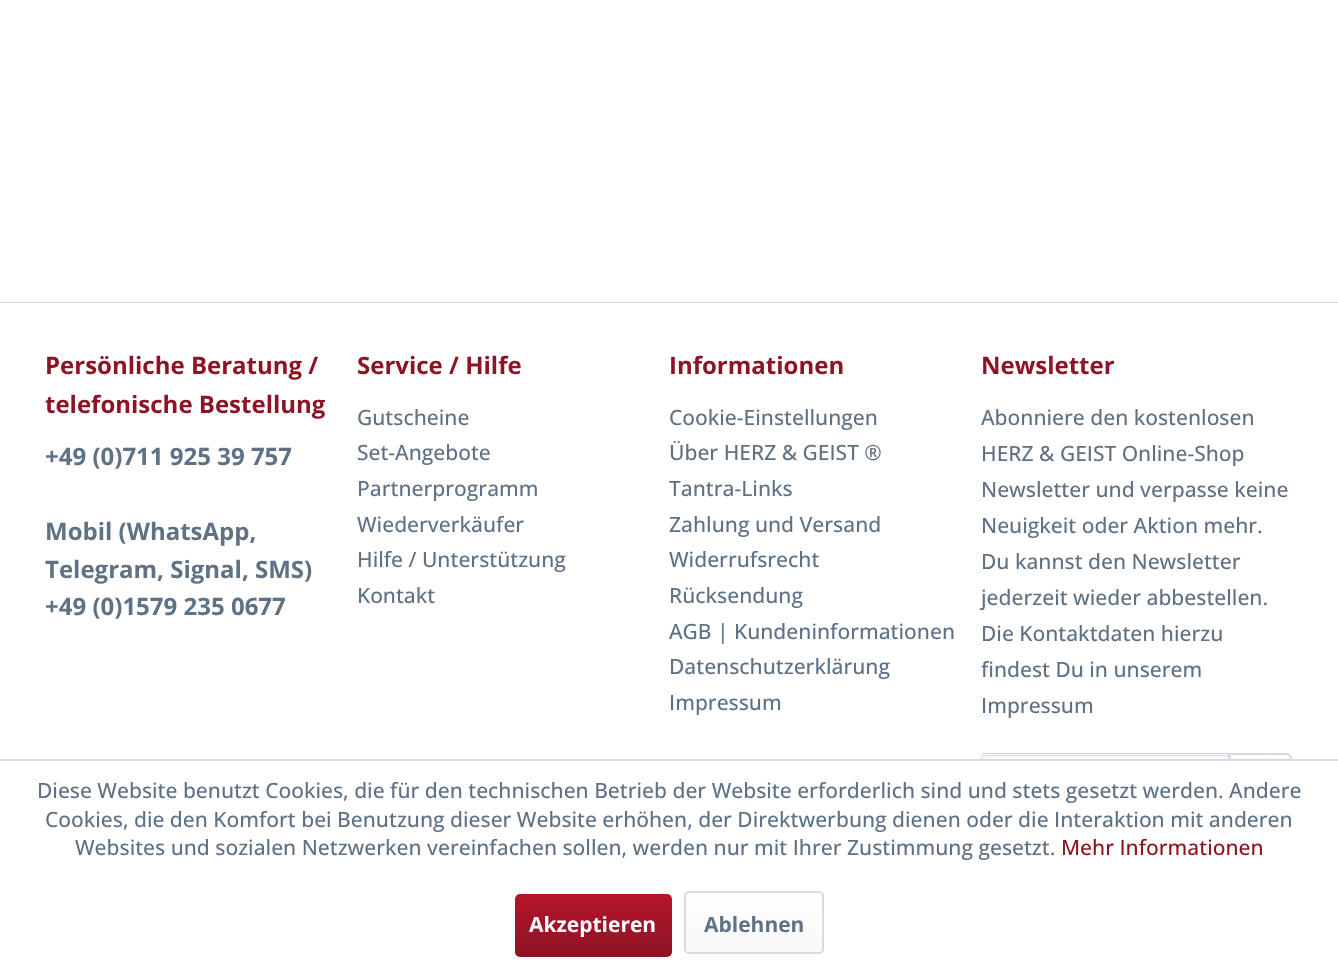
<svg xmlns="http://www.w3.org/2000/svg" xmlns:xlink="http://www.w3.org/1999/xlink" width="1338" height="972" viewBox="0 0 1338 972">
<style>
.cls-1{font:bold 24px Open Sans;fill:#8d1425}
.cls-2{font:bold 24px Open Sans;fill:#5f7185}
.cls-3{font:500 21px Open Sans;fill:#5f7185}
.cls-4{font:500 21px Open Sans;fill:#8d1425}
.cls-5{font:bold 21px Open Sans;fill:#ffffff}
.cls-6{font:bold 21px Open Sans;fill:#5f7185}
</style>
<defs>
<linearGradient id="g1" gradientUnits="userSpaceOnUse" x1="1260" y1="755" x2="1260" y2="812"><stop offset="0" stop-color="#ffffff"/><stop offset="1" stop-color="#f8f8fa"/></linearGradient>
<linearGradient id="g2" gradientUnits="userSpaceOnUse" x1="593" y1="894" x2="593" y2="957"><stop offset="0" stop-color="#b6142b"/><stop offset="1" stop-color="#8d1425"/></linearGradient>
<linearGradient id="g3" gradientUnits="userSpaceOnUse" x1="754" y1="893" x2="754" y2="953"><stop offset="0" stop-color="#ffffff"/><stop offset="1" stop-color="#f8f8fa"/></linearGradient>
</defs>
<rect width="100%" height="100%" fill="#ffffff"/>
<rect fill="#dadae5" x="0" y="302" width="1338" height="1"/>
<path fill="#f8f8fa" d="M986 755H1229V812H986C984.5 812 983 810.5 983 809V758C983 756.5 984.5 755 986 755Z"/>
<path fill="#dadae5" d="M986 756H1228V812H1229V755H986C985 755 984 756 983 757Z"/>
<path fill="#cbcbdb" d="M986 753C984 753 983 754 982 754L983 755C984 754 985 754 986 754H1228V755L1230 753Z"/>
<path fill="#dadae5" d="M1230 753L1228 755V811L1230 813Z"/>
<path fill="#dadae5" d="M981 758V808C981 810 982 811 982 812L983 811L982 808V758L983 755L982 754C982 755 981 756 981 758Z"/>
<path fill="url(#g1)" d="M1230 755H1287C1288.5 755 1290 756.5 1290 758V809C1290 810.5 1288.5 812 1287 812H1230Z"/>
<path fill="none" stroke="#dadae5" stroke-width="2" d="M1230 754H1287C1289 754 1291 756 1291 758V808C1291 810 1289 812 1287 812H1230Z"/>
<rect fill="#ffffff" x="981" y="761" width="311" height="52"/>
<rect fill="#dadae5" x="0" y="759" width="1338" height="2"/>
<rect fill="url(#g2)" x="515" y="894" width="157" height="63" rx="5"/>
<rect fill="url(#g3)" x="686" y="893" width="136" height="60" rx="3"/>
<rect fill="none" stroke="#dadae5" stroke-width="2" x="685" y="892" width="138" height="61" rx="4"/>
<text class="cls-1"><tspan x="45" y="374">Persönliche Beratung /</tspan><tspan x="45" y="413">telefonische Bestellung</tspan></text>
<text class="cls-2" x="45" y="465">+49 (0)711 925 39 757</text>
<text class="cls-2"><tspan x="45" y="540">Mobil (WhatsApp,</tspan><tspan x="45" y="578">Telegram, Signal, SMS)</tspan><tspan x="45" y="615">+49 (0)1579 235 0677</tspan></text>
<text class="cls-1" x="357" y="374">Service / Hilfe</text>
<text class="cls-3"><tspan x="357" y="425">Gutscheine</tspan><tspan x="357" y="460">Set-Angebote</tspan><tspan x="357" y="496">Partnerprogramm</tspan><tspan x="357" y="532">Wiederverkäufer</tspan><tspan x="357" y="567">Hilfe / Unterstützung</tspan><tspan x="357" y="603">Kontakt</tspan></text>
<text class="cls-1" x="669" y="374">Informationen</text>
<text class="cls-3"><tspan x="669" y="425">Cookie-Einstellungen</tspan><tspan x="669" y="460">Über HERZ &amp; GEIST ®</tspan><tspan x="669" y="496">Tantra-Links</tspan><tspan x="669" y="532">Zahlung und Versand</tspan><tspan x="669" y="567">Widerrufsrecht</tspan><tspan x="669" y="603">Rücksendung</tspan><tspan x="669" y="639">AGB | Kundeninformationen</tspan><tspan x="669" y="674">Datenschutzerklärung</tspan><tspan x="669" y="710">Impressum</tspan></text>
<text class="cls-1" x="981" y="374">Newsletter</text>
<text class="cls-3"><tspan x="981" y="425">Abonniere den kostenlosen</tspan><tspan x="981" y="461">HERZ &amp; GEIST Online-Shop</tspan><tspan x="981" y="497">Newsletter und verpasse keine</tspan><tspan x="981" y="533">Neuigkeit oder Aktion mehr.</tspan><tspan x="981" y="569">Du kannst den Newsletter</tspan><tspan x="981" y="605">jederzeit wieder abbestellen.</tspan><tspan x="981" y="641">Die Kontaktdaten hierzu</tspan><tspan x="981" y="677">findest Du in unserem</tspan><tspan x="981" y="713">Impressum</tspan></text>
<text class="cls-3" x="37" y="798">Diese Website benutzt Cookies, die für den technischen Betrieb der Website erforderlich sind und stets gesetzt werden. Andere</text>
<text class="cls-3" x="45" y="827">Cookies, die den Komfort bei Benutzung dieser Website erhöhen, der Direktwerbung dienen oder die Interaktion mit anderen</text>
<text class="cls-3" x="75" y="855">Websites und sozialen Netzwerken vereinfachen sollen, werden nur mit Ihrer Zustimmung gesetzt.</text>
<text class="cls-4" x="1061" y="855">Mehr Informationen</text>
<text class="cls-5" x="529" y="932">Akzeptieren</text>
<text class="cls-6" x="704" y="932">Ablehnen</text>
</svg>
